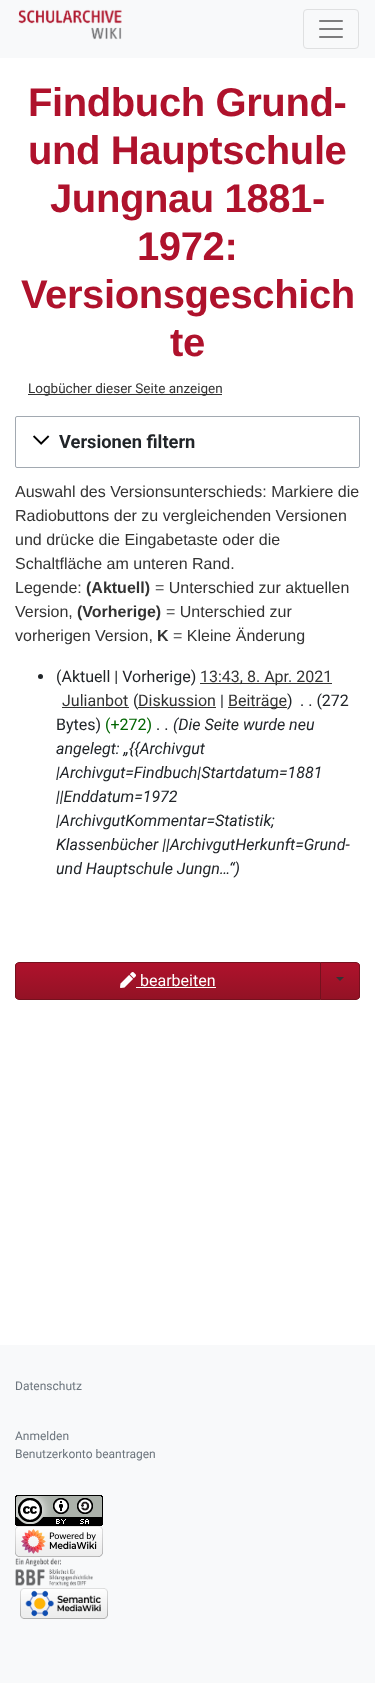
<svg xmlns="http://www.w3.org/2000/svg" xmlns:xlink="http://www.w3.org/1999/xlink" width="375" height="1683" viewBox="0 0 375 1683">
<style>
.cls-1{font:bold 40px Liberation Sans;letter-spacing:-0.4px;fill:#af122c}
.cls-2{font:13.5px Roboto;fill:#333333}
.cls-3{font:bold 18.25px Roboto;fill:#212529}
.cls-4{font:16px Liberation Sans;fill:#333333}
.cls-5{font:bold 16px Liberation Sans;fill:#333333}
.cls-6{font:16px Roboto;fill:#212529}
.cls-7{font:16px Roboto;fill:#333333}
.cls-8{font:16px Roboto;fill:#006400}
.cls-9{font:italic 16px Roboto;fill:#212529}
.cls-10{font:16px Roboto;fill:#ffffff}
.cls-11{font:12px Roboto;fill:#6c757d}
</style>
<defs>
<clipPath id="clip1"><path d="M19 962H321V1000H19C17 1000 15 998 15 996V966C15 964 17 962 19 962Z"/></clipPath>
<linearGradient id="g1" gradientUnits="userSpaceOnUse" x1="168" y1="963" x2="168" y2="999"><stop offset="0" stop-color="#af122c"/><stop offset="1" stop-color="#931225"/></linearGradient>
<clipPath id="clip2"><path d="M320 962H356C358 962 360 964 360 966V996C360 998 358 1000 356 1000H320Z"/></clipPath>
<linearGradient id="g2" gradientUnits="userSpaceOnUse" x1="340" y1="963" x2="340" y2="999"><stop offset="0" stop-color="#af122c"/><stop offset="1" stop-color="#931225"/></linearGradient>
</defs>
<rect width="100%" height="100%" fill="#ffffff"/>
<rect fill="#f8f9fa" x="0" y="0" width="375" height="58"/>
<image xlink:href="image0.png" x="18" y="9" width="104" height="31"/>
<rect fill="none" stroke="#dfe0e1" x="303.5" y="9.5" width="55" height="39" rx="3.5"/>
<image xlink:href="image1.png" x="319" y="20" width="24" height="18"/>
<rect fill="#333333" x="28" y="394" width="194" height="1"/>
<rect fill="none" stroke="#a2a9b1" x="15.5" y="416.5" width="344" height="51" rx="1.5"/>
<image xlink:href="image2.png" x="33" y="435" width="17" height="10"/>
<circle fill="#212529" cx="40.5" cy="676.5" r="2.5"/>
<rect fill="#333333" x="200" y="683" width="132" height="1"/>
<rect fill="#333333" x="62" y="707" width="67" height="1"/>
<rect fill="#333333" x="138" y="707" width="78" height="1"/>
<rect fill="#333333" x="228" y="707" width="59" height="1"/>
<g clip-path="url(#clip1)">
<rect fill="url(#g1)" x="15" y="963" width="305" height="36"/>
</g>
<path fill="none" stroke="#75111e" d="M19 962.5H320.5V999.5H19C17 999.5 15.5 998 15.5 996V966C15.5 964 17 962.5 19 962.5Z"/>
<image xlink:href="image3.png" x="120" y="972" width="16" height="16"/>
<rect fill="#ffffff" x="136" y="987" width="80" height="1"/>
<g clip-path="url(#clip2)">
<rect fill="url(#g2)" x="321" y="963" width="39" height="36"/>
</g>
<path fill="none" stroke="#75111e" d="M320.5 962.5H356C358 962.5 359.5 964 359.5 966V996C359.5 998 358 999.5 356 999.5H320.5Z"/>
<path fill="#333333" d="M336 977H344L340 981Z"/>
<rect fill="#f8f9fa" x="0" y="1345" width="375" height="338"/>
<image xlink:href="image4.png" x="15" y="1495" width="88" height="31"/>
<image xlink:href="image5.png" x="15" y="1526" width="88" height="31"/>
<image xlink:href="image6.png" x="15" y="1558" width="78" height="29"/>
<image xlink:href="image7.png" x="20" y="1588" width="88" height="31"/>
<text class="cls-1"><tspan x="28" y="116">Findbuch Grund-</tspan><tspan x="28" y="164">und Hauptschule</tspan></text>
<text class="cls-1" x="50" y="212">Jungnau 1881-</text>
<text class="cls-1" x="137" y="260">1972:</text>
<text class="cls-1" x="21" y="308">Versionsgeschich</text>
<text class="cls-1" x="170" y="356">te</text>
<text class="cls-2" x="28" y="393">Logbücher dieser Seite anzeigen</text>
<text class="cls-3" x="59" y="448">Versionen filtern</text>
<text class="cls-4"><tspan x="15" y="497">Auswahl des Versionsunterschieds: Markiere die</tspan><tspan x="15" y="521">Radiobuttons der zu vergleichenden Versionen</tspan><tspan x="15" y="545">und drücke die Eingabetaste oder die</tspan><tspan x="15" y="569">Schaltfläche am unteren Rand.</tspan><tspan x="15" y="593">Legende:</tspan></text>
<text class="cls-5" x="86" y="593">(Aktuell)</text>
<text class="cls-4" x="155" y="593">= Unterschied zur aktuellen</text>
<text class="cls-4" x="15" y="617">Version,</text>
<text class="cls-5" x="77" y="617">(Vorherige)</text>
<text class="cls-4" x="166" y="617">= Unterschied zur</text>
<text class="cls-4" x="15" y="641">vorherigen Version,</text>
<text class="cls-5" x="157" y="641">K</text>
<text class="cls-4" x="173" y="641">= Kleine Änderung</text>
<text class="cls-6" x="56" y="682">(Aktuell | Vorherige)</text>
<text class="cls-7" x="200" y="682">13:43, 8. Apr. 2021</text>
<text class="cls-7" x="62" y="706">Julianbot</text>
<text class="cls-6" x="133" y="706">(</text>
<text class="cls-7" x="138" y="706">Diskussion</text>
<text class="cls-6" x="220" y="706">|</text>
<text class="cls-7" x="228" y="706">Beiträge</text>
<text class="cls-6" x="287" y="706">)</text>
<text class="cls-6" x="300" y="706">. . (272</text>
<text class="cls-6" x="56" y="730">Bytes)</text>
<text class="cls-8" x="105" y="730">(+272)</text>
<text class="cls-6" x="156" y="730">. .</text>
<text class="cls-9" x="173" y="730">(Die Seite wurde neu</text>
<text class="cls-9"><tspan x="56" y="754">angelegt: „{{Archivgut</tspan><tspan x="56" y="778">|Archivgut=Findbuch|Startdatum=1881</tspan><tspan x="56" y="802">||Enddatum=1972</tspan><tspan x="56" y="826">|ArchivgutKommentar=Statistik;</tspan><tspan x="56" y="850">Klassenbücher ||ArchivgutHerkunft=Grund-</tspan><tspan x="56" y="874">und Hauptschule Jungn…“)</tspan></text>
<text class="cls-10" x="140" y="986">bearbeiten</text>
<text class="cls-11" x="15" y="1390">Datenschutz</text>
<text class="cls-11"><tspan x="15" y="1440">Anmelden</tspan><tspan x="15" y="1458">Benutzerkonto beantragen</tspan></text>
</svg>
